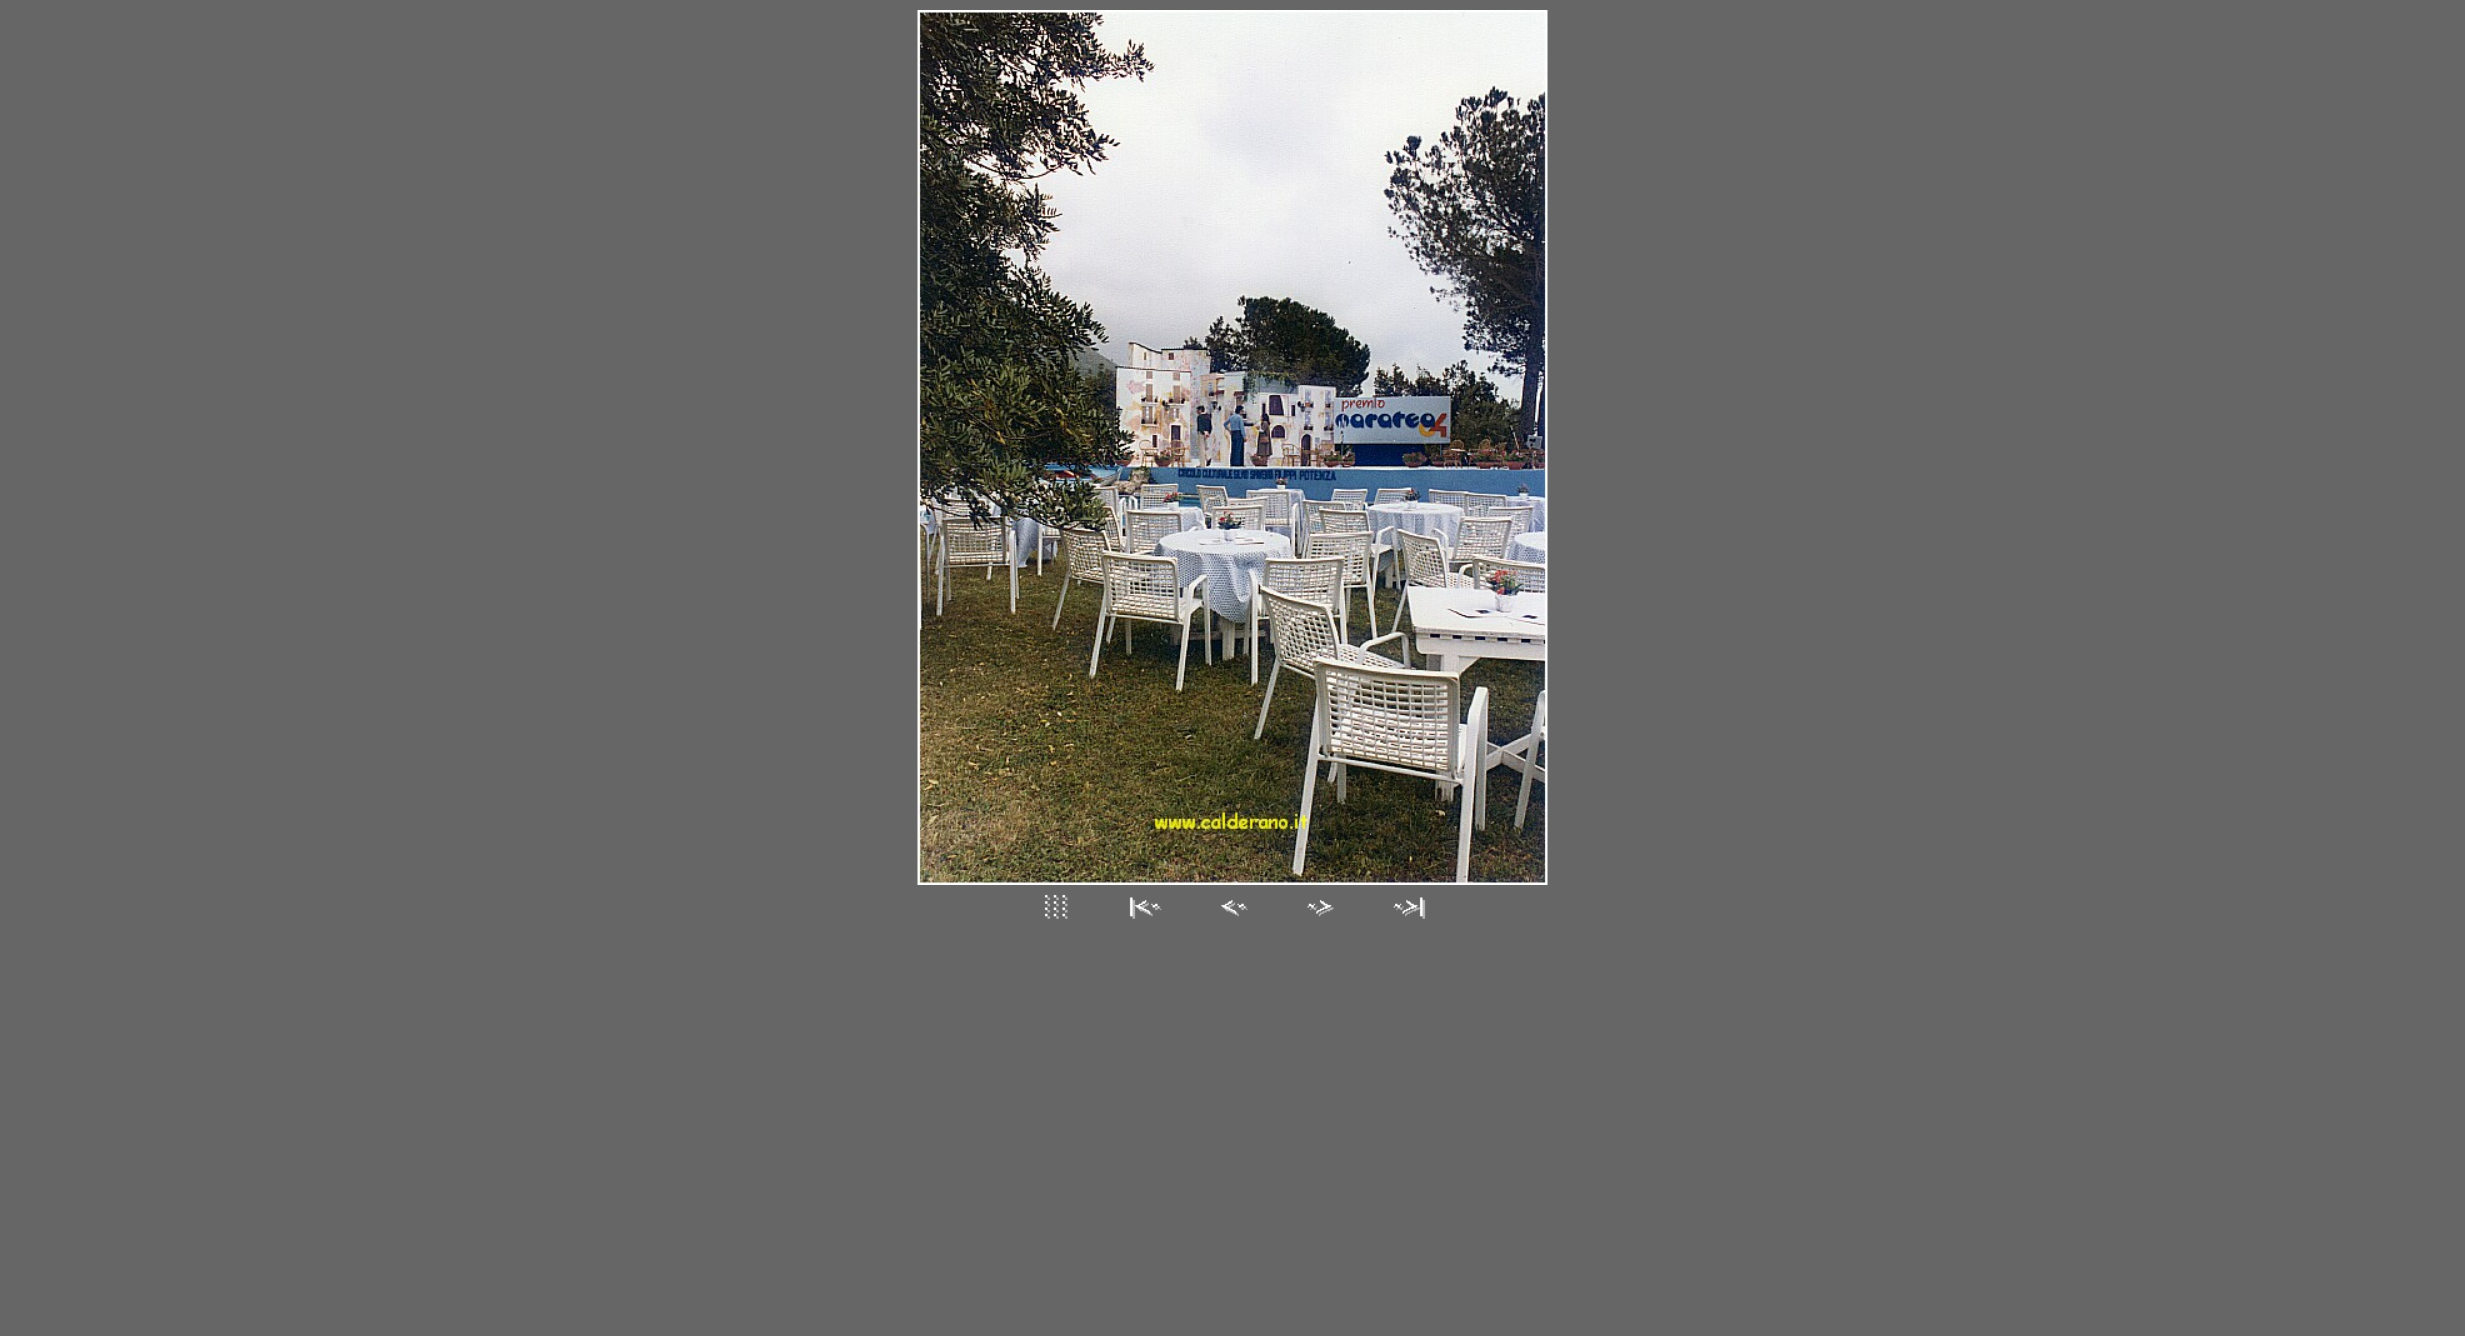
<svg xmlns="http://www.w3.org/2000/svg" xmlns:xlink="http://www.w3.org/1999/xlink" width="2465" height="1336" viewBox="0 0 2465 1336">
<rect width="100%" height="100%" fill="#666666"/>
<image xlink:href="image0.png" x="917" y="10" width="631" height="875"/>
<image xlink:href="image1.png" x="1044" y="894" width="24" height="25"/>
<image xlink:href="image2.png" x="1129" y="897" width="33" height="22"/>
<image xlink:href="image3.png" x="1221" y="899" width="27" height="18"/>
<image xlink:href="image4.png" x="1307" y="899" width="27" height="18"/>
<image xlink:href="image5.png" x="1393" y="897" width="33" height="22"/>
</svg>
